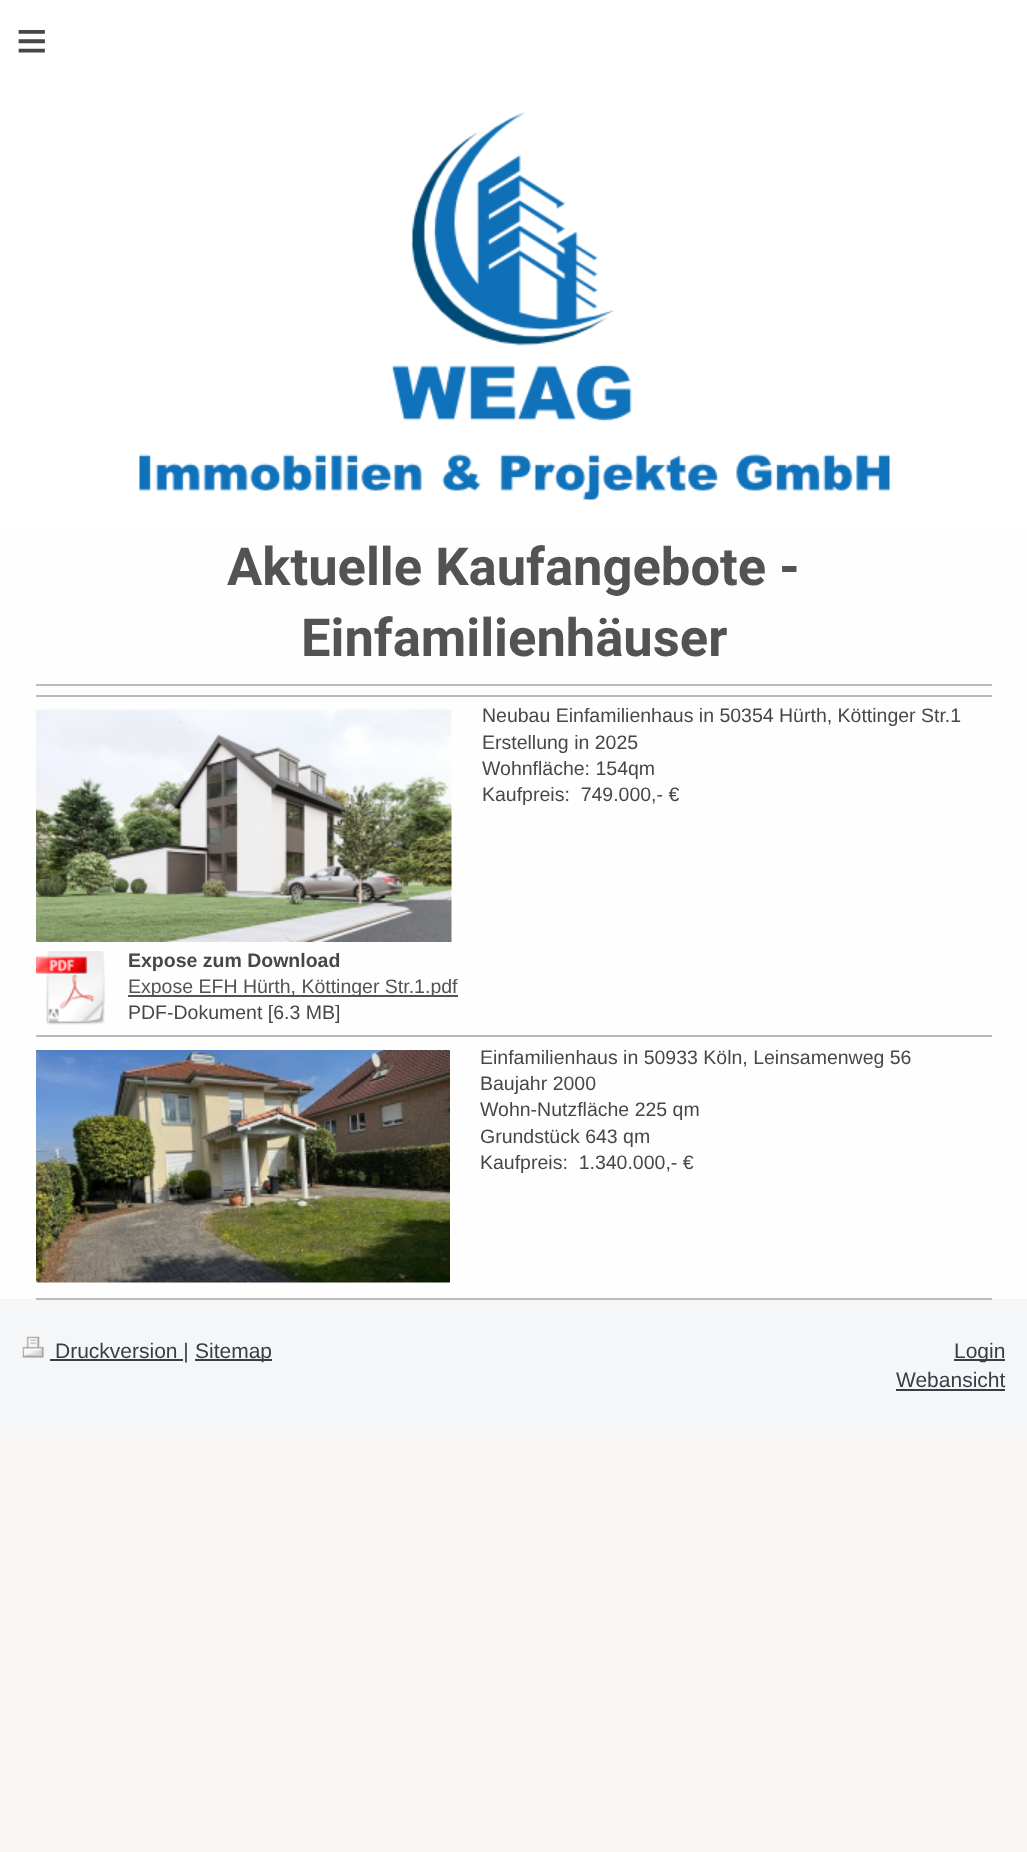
<svg xmlns="http://www.w3.org/2000/svg" xmlns:xlink="http://www.w3.org/1999/xlink" width="1027" height="1852" viewBox="0 0 1027 1852">
<style>
.cls-1{font:54px Liberation Sans;letter-spacing:16px;fill:#474747}
.cls-2{font:bold 52.5px Roboto;fill:#535353}
.cls-3{font:19.5px Liberation Sans;fill:#474747}
.cls-4{font:bold 19.5px Liberation Sans;fill:#474747}
.cls-5{font:19.5px Liberation Sans;fill:#535353}
.cls-6{font:21px Liberation Sans;fill:#383d46}
</style>
<rect width="100%" height="100%" fill="#f8f5f5"/>
<rect fill="#ffffff" x="0" y="0" width="1027" height="533"/>
<image xlink:href="image0.png" x="139" y="112" width="751" height="388"/>
<rect fill="#fffefe" x="0" y="533" width="1027" height="766"/>
<rect fill="#bababa" x="36" y="684" width="956" height="2"/>
<rect fill="#bababa" x="36" y="695" width="956" height="2"/>
<image xlink:href="image1.png" x="36" y="709" width="416" height="233"/>
<image xlink:href="image2.png" x="36" y="951" width="69" height="74"/>
<rect fill="#535353" x="128" y="995" width="330" height="2"/>
<rect fill="#bababa" x="36" y="1035" width="956" height="2"/>
<image xlink:href="image3.png" x="36" y="1050" width="414" height="233"/>
<rect fill="#bababa" x="36" y="1298" width="956" height="2"/>
<rect fill="#f5f6f8" x="0" y="1307" width="1027" height="118"/>
<image xlink:href="image4.png" x="22" y="1336" width="22" height="22"/>
<rect fill="#383d46" x="50" y="1359" width="133" height="2"/>
<rect fill="#383d46" x="195" y="1359" width="77" height="2"/>
<rect fill="#383d46" x="954" y="1359" width="51" height="2"/>
<rect fill="#383d46" x="896" y="1389" width="109" height="2"/>
<text class="cls-1" x="16" y="59">≡</text>
<text class="cls-2" x="227" y="585">Aktuelle Kaufangebote -</text>
<text class="cls-2" x="301" y="656">Einfamilienhäuser</text>
<text class="cls-3" xml:space="preserve"><tspan x="482" y="722">Neubau Einfamilienhaus in 50354 Hürth, Köttinger Str.1</tspan><tspan x="482" y="749">Erstellung in 2025</tspan><tspan x="482" y="775">Wohnfläche: 154qm</tspan><tspan x="482" y="801">Kaufpreis:  749.000,- €</tspan></text>
<text class="cls-4" x="128" y="967">Expose zum Download</text>
<text class="cls-5" x="128" y="993">Expose EFH Hürth, Köttinger Str.1.pdf</text>
<text class="cls-3" x="128" y="1019">PDF-Dokument [6.3 MB]</text>
<text class="cls-3" xml:space="preserve"><tspan x="480" y="1064">Einfamilienhaus in 50933 Köln, Leinsamenweg 56</tspan><tspan x="480" y="1090">Baujahr 2000</tspan><tspan x="480" y="1116">Wohn-Nutzfläche 225 qm</tspan><tspan x="480" y="1143">Grundstück 643 qm</tspan><tspan x="480" y="1169">Kaufpreis:  1.340.000,- €</tspan></text>
<text class="cls-6" x="55" y="1358">Druckversion |</text>
<text class="cls-6" x="195" y="1358">Sitemap</text>
<text class="cls-6" x="954" y="1358">Login</text>
<text class="cls-6" x="896" y="1387">Webansicht</text>
</svg>
